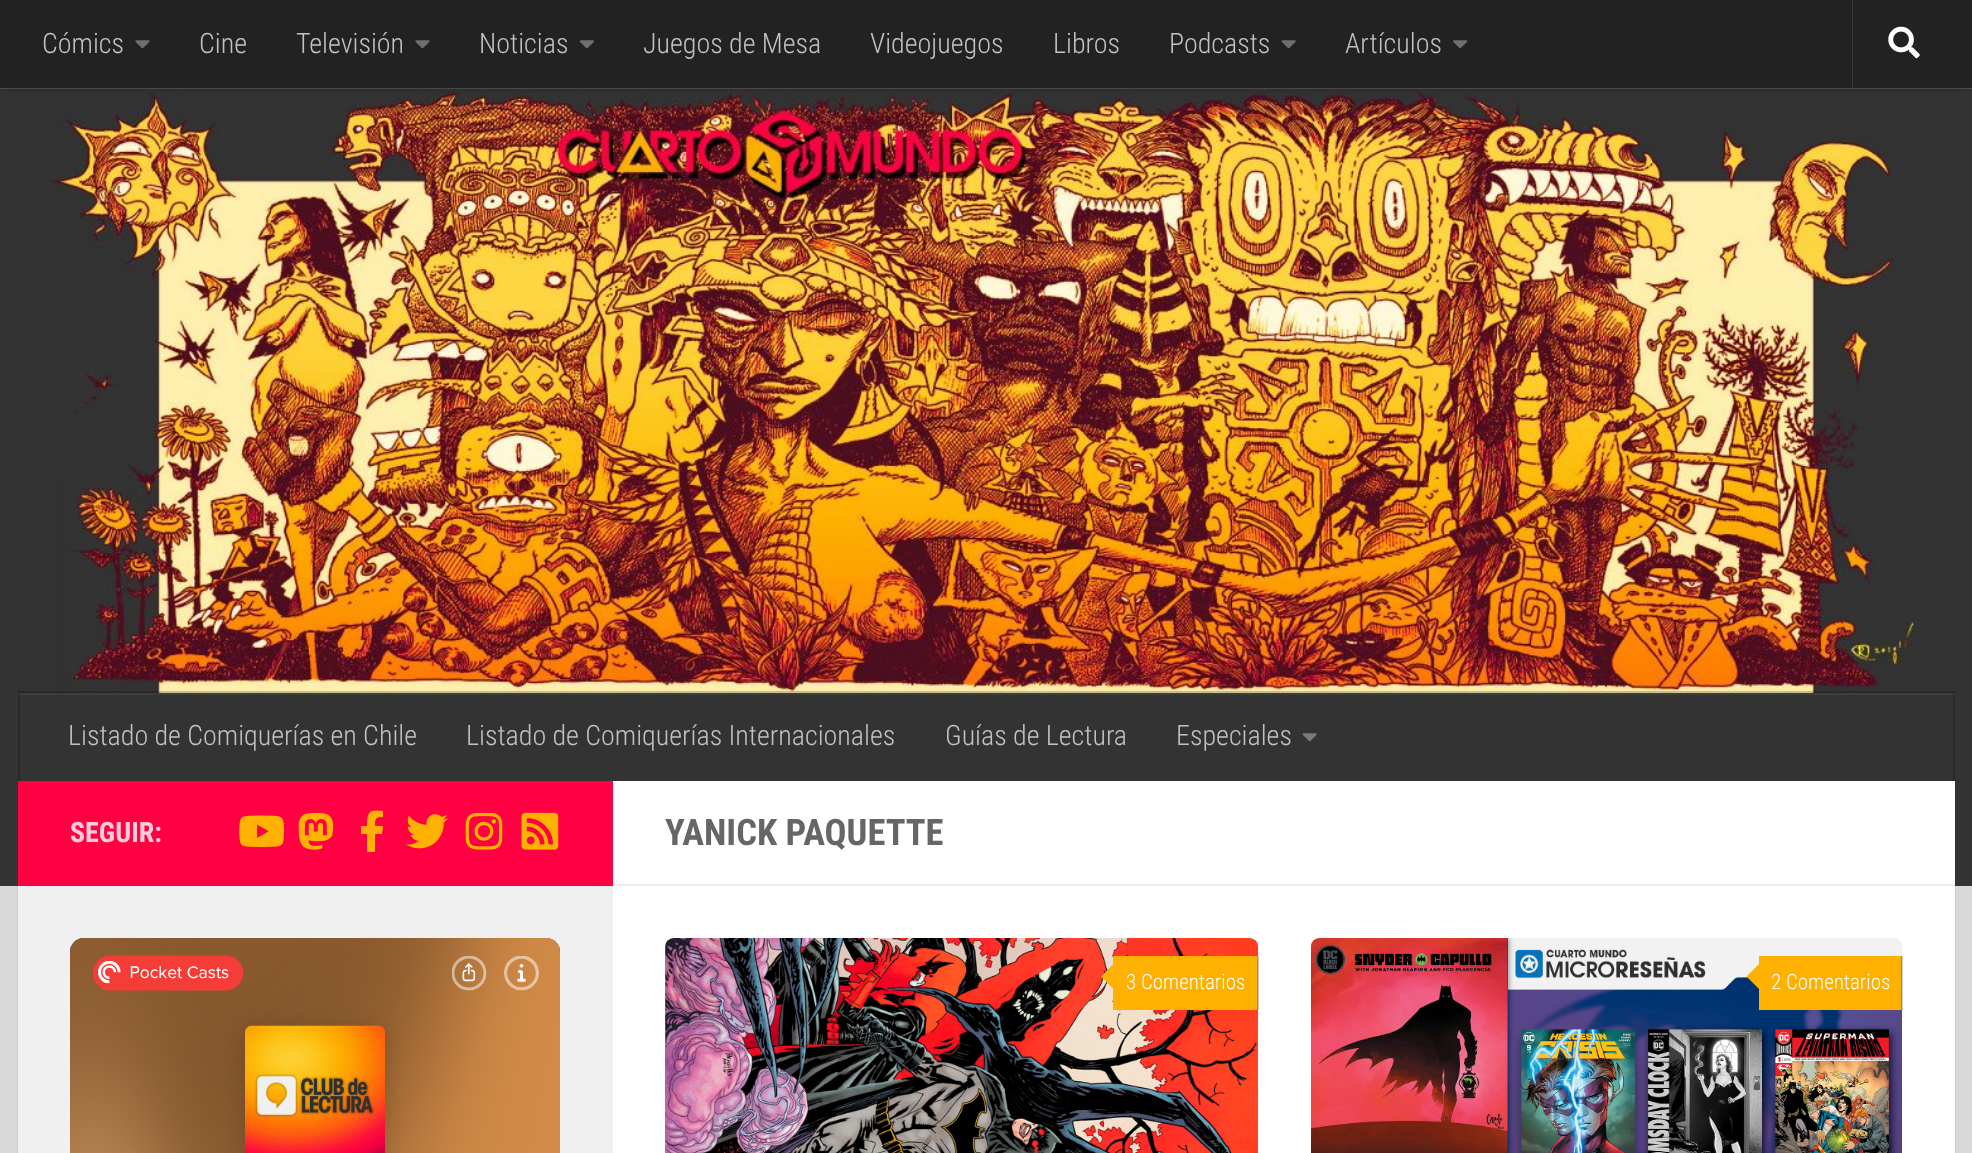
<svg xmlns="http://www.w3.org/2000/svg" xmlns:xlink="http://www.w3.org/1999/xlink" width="1972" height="1153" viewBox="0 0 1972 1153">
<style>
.cls-1{font:300 28px Roboto Condensed;fill:#c2c2c2}
.cls-2{font:bold 28px Roboto Condensed;fill:#ffccd9}
.cls-3{font:bold 36.5px Roboto Condensed;fill:#666666}
.cls-4{font:300 21px Roboto Condensed;fill:#ffffff}
</style>
<rect width="100%" height="100%" fill="#d9d9d9"/>
<rect fill="#000000" fill-opacity="0.1" filter="blur(1px)" x="18" y="782" width="1937" height="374"/>
<rect fill="#333333" x="0" y="88" width="1972" height="798"/>
<rect fill="#3d3d3d" x="18" y="693" width="1937" height="2"/>
<image xlink:href="image5.png" x="50" y="88" width="1865" height="605"/>
<rect fill="#ffffff" fill-opacity="0.15" x="0" y="88" width="1972" height="1"/>
<rect fill="#000000" fill-opacity="0.2" filter="blur(4.5px)" x="0" y="0" width="1972" height="88"/>
<rect fill="#222222" x="0" y="0" width="1972" height="88"/>
<image xlink:href="image0.png" x="135" y="40" width="15" height="9"/>
<image xlink:href="image0.png" x="415" y="40" width="15" height="9"/>
<image xlink:href="image1.png" x="579" y="40" width="15" height="9"/>
<image xlink:href="image2.png" x="1281" y="40" width="15" height="9"/>
<image xlink:href="image3.png" x="1453" y="40" width="15" height="9"/>
<path fill="#383838" d="M1852 0V88H1953H1853V0Z"/>
<image xlink:href="image4.png" x="1888" y="26" width="32" height="33"/>
<path fill="#000000" fill-opacity="0.2" d="M18 691V693H1955V779V691Z"/>
<rect fill="#292929" x="1953" y="693" width="2" height="88"/>
<rect fill="#343434" x="1953" y="693" width="2" height="2"/>
<rect fill="#292929" x="18" y="693" width="2" height="88"/>
<rect fill="#343434" x="18" y="693" width="2" height="2"/>
<image xlink:href="image6.png" x="1302" y="733" width="15" height="9"/>
<rect fill="#ffffff" x="613" y="781" width="1342" height="372"/>
<rect fill="#ff0042" x="18" y="781" width="595" height="105"/>
<image xlink:href="image7.png" x="239" y="815" width="45" height="32"/>
<image xlink:href="image8.png" x="298" y="812" width="35" height="38"/>
<path fill="#feb100" d="M382 834H375V852H367V834H361V826H367C367 812 369 809 383 811V817C375 817 375 819 375 826H383Z"/>
<image xlink:href="image9.png" x="406" y="814" width="42" height="35"/>
<image xlink:href="image10.png" x="465" y="812" width="38" height="38"/>
<image xlink:href="image11.png" x="521" y="812" width="38" height="38"/>
<rect fill="#f0f0f0" x="18" y="886" width="595" height="267"/>
<image xlink:href="image12.png" x="70" y="938" width="490" height="215"/>
<rect fill="#eeeeee" x="613" y="884" width="1342" height="2"/>
<image xlink:href="image13.png" x="665" y="938" width="594" height="215"/>
<rect fill="#feb100" x="1113" y="956" width="145" height="54"/>
<rect fill="#000000" fill-opacity="0.2" x="1257" y="956" width="2" height="54"/>
<path fill="#feb100" d="M1116.5 961V992L1101 976.5Z"/>
<image xlink:href="image14.png" x="1311" y="938" width="591" height="215"/>
<rect fill="#feb100" x="1759" y="956" width="143" height="54"/>
<rect fill="#000000" fill-opacity="0.2" x="1901" y="956" width="2" height="54"/>
<path fill="#feb100" d="M1762 961V992L1746.5 976.5Z"/>
<text class="cls-1" x="42" y="53">Cómics</text>
<text class="cls-1" x="199" y="53">Cine</text>
<text class="cls-1" x="296" y="53">Televisión</text>
<text class="cls-1" x="479" y="53">Noticias</text>
<text class="cls-1" x="643" y="53">Juegos de Mesa</text>
<text class="cls-1" x="870" y="53">Videojuegos</text>
<text class="cls-1" x="1053" y="53">Libros</text>
<text class="cls-1" x="1169" y="53">Podcasts</text>
<text class="cls-1" x="1345" y="53">Artículos</text>
<text class="cls-1" x="68" y="745">Listado de Comiquerías en Chile</text>
<text class="cls-1" x="466" y="745">Listado de Comiquerías Internacionales</text>
<text class="cls-1" x="945" y="745">Guías de Lectura</text>
<text class="cls-1" x="1176" y="745">Especiales</text>
<text class="cls-2" x="70" y="842">SEGUIR:</text>
<text class="cls-3" x="665" y="845">YANICK PAQUETTE</text>
<text class="cls-4" x="1126" y="989">3 Comentarios</text>
<text class="cls-4" x="1771" y="989">2 Comentarios</text>
</svg>
